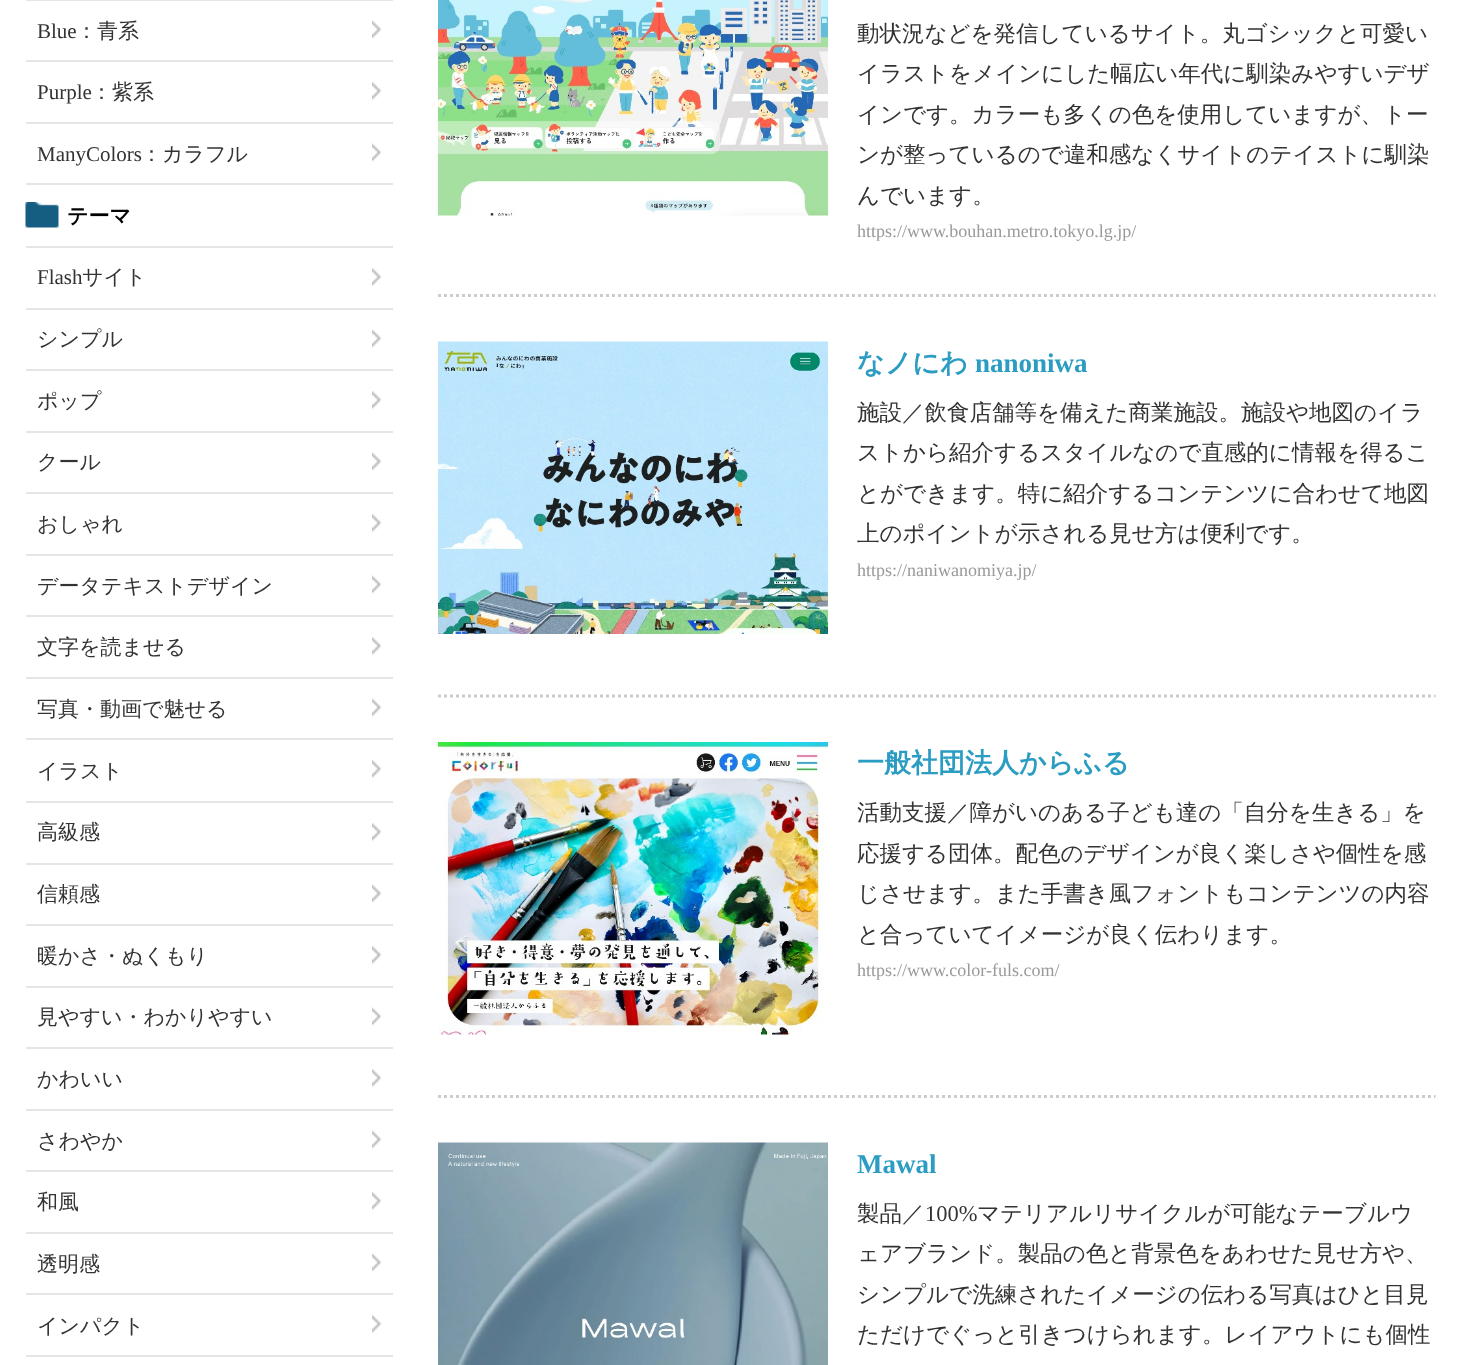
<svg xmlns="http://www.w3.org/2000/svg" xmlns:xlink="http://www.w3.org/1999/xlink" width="1459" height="1365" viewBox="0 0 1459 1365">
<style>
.cls-1{font:21px Liberation Serif;fill:#333333}
.cls-2{font:500 21px WenQuanYi Zen Hei;fill:#333333}
.cls-3{font:bold 21px WenQuanYi Zen Hei;fill:#000000}
.cls-4{font:500 22.5px WenQuanYi Zen Hei;fill:#333333}
.cls-5{font:18px Liberation Serif;fill:#999999}
.cls-6{font:bold 27px WenQuanYi Zen Hei;fill:#2b9cc2}
.cls-7{font:bold 27px Liberation Serif;fill:#2b9cc2}
.cls-8{font:22.5px Liberation Serif;fill:#333333}
</style>
<rect width="100%" height="100%" fill="#ffffff"/>
<rect fill="#e5e5e5" x="26" y="0" width="367" height="1"/>
<image xlink:href="image0.png" x="372" y="20" width="10" height="19"/>
<rect fill="#e5e5e5" x="26" y="60" width="367" height="2"/>
<image xlink:href="image1.png" x="372" y="82" width="10" height="18"/>
<rect fill="#e5e5e5" x="26" y="122" width="367" height="2"/>
<image xlink:href="image0.png" x="372" y="143" width="10" height="19"/>
<rect fill="#e5e5e5" x="26" y="183" width="367" height="2"/>
<image xlink:href="image2.png" x="25" y="202" width="34" height="26"/>
<rect fill="#e5e5e5" x="26" y="246" width="367" height="2"/>
<image xlink:href="image1.png" x="372" y="268" width="10" height="18"/>
<rect fill="#e5e5e5" x="26" y="308" width="367" height="2"/>
<image xlink:href="image0.png" x="372" y="329" width="10" height="19"/>
<rect fill="#e5e5e5" x="26" y="369" width="367" height="2"/>
<image xlink:href="image1.png" x="372" y="391" width="10" height="18"/>
<rect fill="#e5e5e5" x="26" y="431" width="367" height="2"/>
<image xlink:href="image0.png" x="372" y="452" width="10" height="19"/>
<rect fill="#e5e5e5" x="26" y="492" width="367" height="2"/>
<image xlink:href="image1.png" x="372" y="514" width="10" height="18"/>
<rect fill="#e5e5e5" x="26" y="554" width="367" height="2"/>
<image xlink:href="image0.png" x="372" y="575" width="10" height="19"/>
<rect fill="#e5e5e5" x="26" y="615" width="367" height="2"/>
<image xlink:href="image1.png" x="372" y="637" width="10" height="18"/>
<rect fill="#e5e5e5" x="26" y="677" width="367" height="2"/>
<image xlink:href="image0.png" x="372" y="698" width="10" height="19"/>
<rect fill="#e5e5e5" x="26" y="738" width="367" height="2"/>
<image xlink:href="image1.png" x="372" y="760" width="10" height="18"/>
<rect fill="#e5e5e5" x="26" y="801" width="367" height="2"/>
<image xlink:href="image1.png" x="372" y="823" width="10" height="18"/>
<rect fill="#e5e5e5" x="26" y="863" width="367" height="2"/>
<image xlink:href="image0.png" x="372" y="884" width="10" height="19"/>
<rect fill="#e5e5e5" x="26" y="924" width="367" height="2"/>
<image xlink:href="image1.png" x="372" y="946" width="10" height="18"/>
<rect fill="#e5e5e5" x="26" y="986" width="367" height="2"/>
<image xlink:href="image0.png" x="372" y="1007" width="10" height="19"/>
<rect fill="#e5e5e5" x="26" y="1047" width="367" height="2"/>
<image xlink:href="image1.png" x="372" y="1069" width="10" height="18"/>
<rect fill="#e5e5e5" x="26" y="1109" width="367" height="2"/>
<image xlink:href="image0.png" x="372" y="1130" width="10" height="19"/>
<rect fill="#e5e5e5" x="26" y="1170" width="367" height="2"/>
<image xlink:href="image1.png" x="372" y="1192" width="10" height="18"/>
<rect fill="#e5e5e5" x="26" y="1232" width="367" height="2"/>
<image xlink:href="image0.png" x="372" y="1253" width="10" height="19"/>
<rect fill="#e5e5e5" x="26" y="1293" width="367" height="2"/>
<image xlink:href="image1.png" x="372" y="1315" width="10" height="18"/>
<rect fill="#e5e5e5" x="26" y="1355" width="367" height="2"/>
<image xlink:href="image3.png" x="438" y="0" width="390" height="216"/>
<path fill="none" stroke="#cccccc" stroke-width="3" stroke-dasharray="3 3" d="M438 295.5H1435.5"/>
<image xlink:href="image4.png" x="438" y="341" width="390" height="293"/>
<path fill="none" stroke="#cccccc" stroke-width="3" stroke-dasharray="3 3" d="M438 696H1435.5"/>
<image xlink:href="image5.png" x="438" y="742" width="390" height="293"/>
<path fill="none" stroke="#cccccc" stroke-width="3" stroke-dasharray="3 3" d="M438 1096.5H1435.5"/>
<image xlink:href="image6.png" x="438" y="1142" width="390" height="223"/>
<text class="cls-1" x="37" y="38">Blue</text>
<text class="cls-2" x="76" y="38">：青系</text>
<text class="cls-1" x="37" y="99">Purple</text>
<text class="cls-2" x="91" y="99">：紫系</text>
<text class="cls-1" x="37" y="161">ManyColors</text>
<text class="cls-2" x="141" y="161">：カラフル</text>
<text class="cls-3" x="67" y="223">テーマ</text>
<text class="cls-1" x="37" y="284">Flash</text>
<text class="cls-2" x="82" y="284">サイト</text>
<text class="cls-2" x="37" y="346">シンプル</text>
<text class="cls-2" x="37" y="408">ポップ</text>
<text class="cls-2" x="37" y="469">クール</text>
<text class="cls-2" x="37" y="531">おしゃれ</text>
<text class="cls-2" x="37" y="593">データテキストデザイン</text>
<text class="cls-2" x="37" y="654">文字を読ませる</text>
<text class="cls-2" x="37" y="716">写真・動画で魅せる</text>
<text class="cls-2" x="37" y="778">イラスト</text>
<text class="cls-2" x="37" y="839">高級感</text>
<text class="cls-2" x="37" y="901">信頼感</text>
<text class="cls-2" x="37" y="963">暖かさ・ぬくもり</text>
<text class="cls-2" x="37" y="1024">見やすい・わかりやすい</text>
<text class="cls-2" x="37" y="1086">かわいい</text>
<text class="cls-2" x="37" y="1148">さわやか</text>
<text class="cls-2" x="37" y="1209">和風</text>
<text class="cls-2" x="37" y="1271">透明感</text>
<text class="cls-2" x="37" y="1333">インパクト</text>
<text class="cls-4"><tspan x="857" y="41">動状況などを発信しているサイト。丸ゴシックと可愛い</tspan><tspan x="857" y="81">イラストをメインにした幅広い年代に馴染みやすいデザ</tspan><tspan x="857" y="122">インです。カラーも多くの色を使用していますが、トー</tspan><tspan x="857" y="162">ンが整っているので違和感なくサイトのテイストに馴染</tspan><tspan x="857" y="203">んでいます。</tspan></text>
<text class="cls-5" x="857" y="237">https://www.bouhan.metro.tokyo.lg.jp/</text>
<text class="cls-6" x="857" y="372">なノにわ</text>
<text class="cls-7" x="975" y="372">nanoniwa</text>
<text class="cls-4"><tspan x="857" y="420">施設／飲食店舗等を備えた商業施設。施設や地図のイラ</tspan><tspan x="857" y="460">ストから紹介するスタイルなので直感的に情報を得るこ</tspan><tspan x="857" y="501">とができます。特に紹介するコンテンツに合わせて地図</tspan><tspan x="857" y="541">上のポイントが示される見せ方は便利です。</tspan></text>
<text class="cls-5" x="857" y="576">https://naniwanomiya.jp/</text>
<text class="cls-6" x="857" y="772">一般社団法人からふる</text>
<text class="cls-4"><tspan x="857" y="820">活動支援／障がいのある子ども達の「自分を生きる」を</tspan><tspan x="857" y="861">応援する団体。配色のデザインが良く楽しさや個性を感</tspan><tspan x="857" y="901">じさせます。また手書き風フォントもコンテンツの内容</tspan><tspan x="857" y="942">と合っていてイメージが良く伝わります。</tspan></text>
<text class="cls-5" x="857" y="976">https://www.color-fuls.com/</text>
<text class="cls-7" x="857" y="1173">Mawal</text>
<text class="cls-4" x="857" y="1221">製品／</text>
<text class="cls-8" x="925" y="1221">100%</text>
<text class="cls-4" x="977" y="1221">マテリアルリサイクルが可能なテーブルウ</text>
<text class="cls-4"><tspan x="857" y="1261">ェアブランド。製品の色と背景色をあわせた見せ方や、</tspan><tspan x="857" y="1302">シンプルで洗練されたイメージの伝わる写真はひと目見</tspan><tspan x="857" y="1342">ただけでぐっと引きつけられます。レイアウトにも個性</tspan></text>
</svg>
